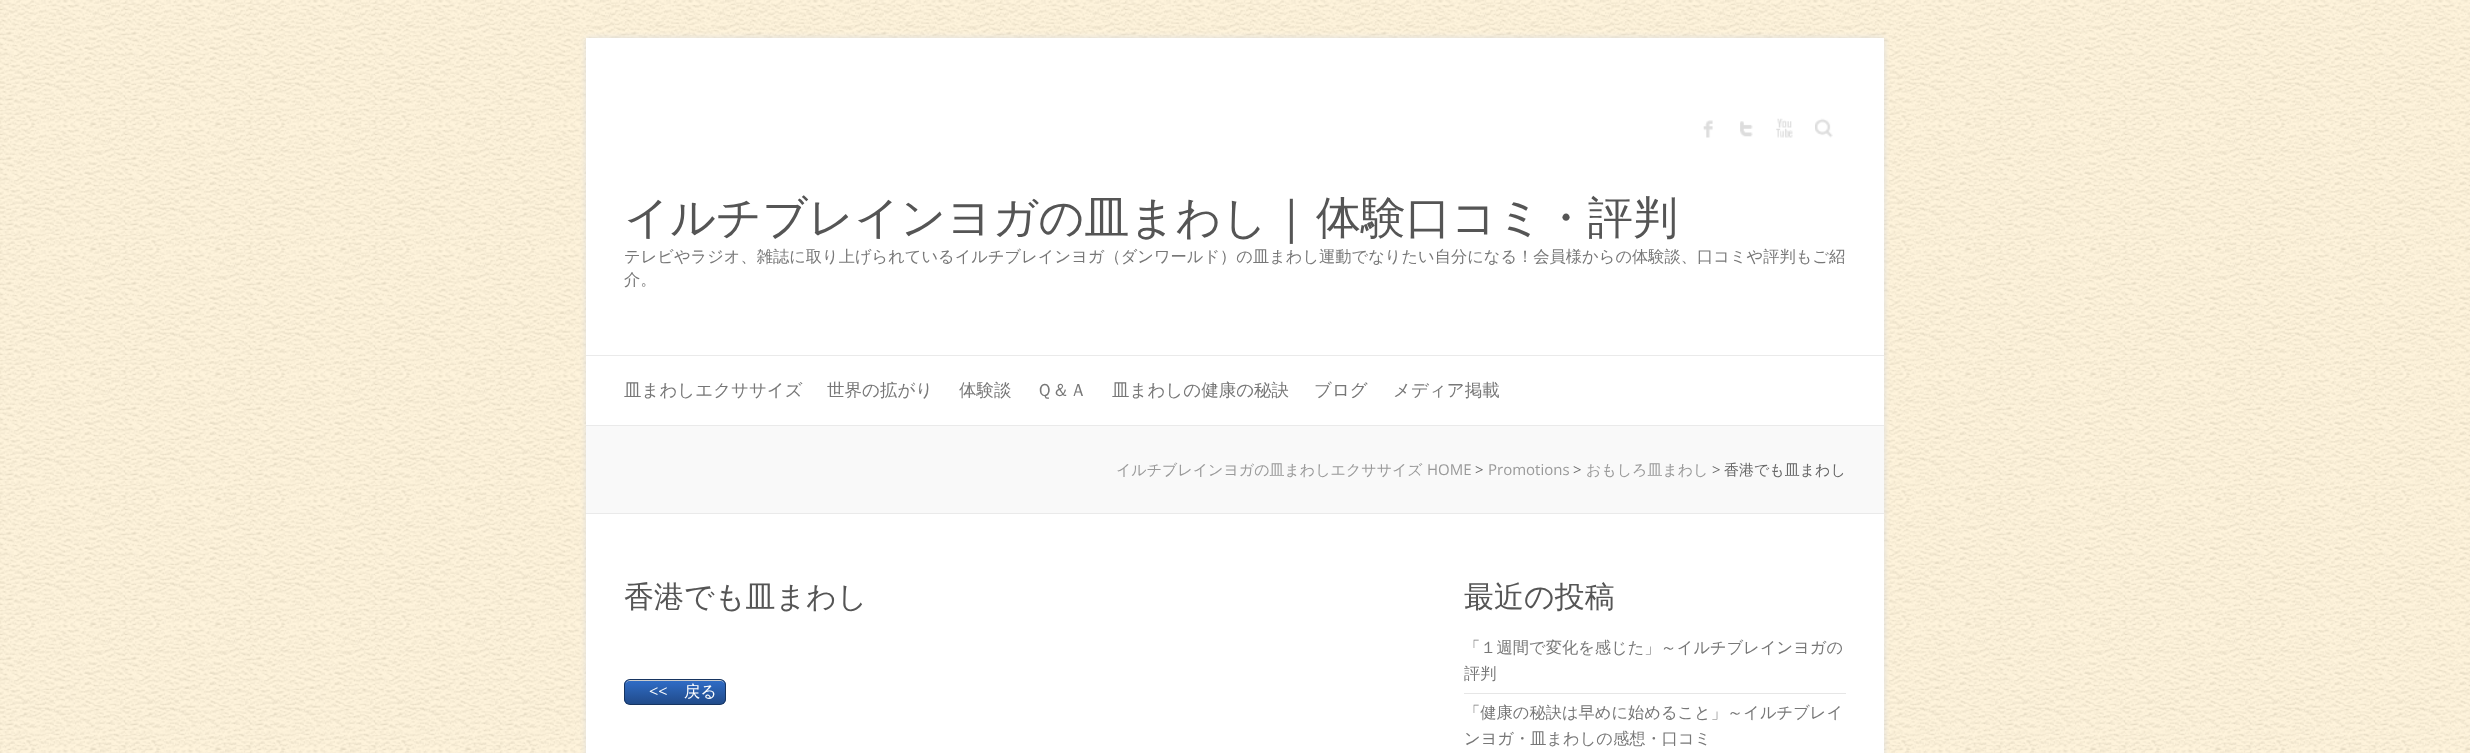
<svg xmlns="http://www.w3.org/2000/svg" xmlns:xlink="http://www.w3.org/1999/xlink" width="2470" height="753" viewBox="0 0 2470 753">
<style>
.cls-1{font:500 45px WenQuanYi Zen Hei;fill:#555555}
.cls-2{font:45px Open Sans;fill:#555555}
.cls-3{font:500 16.25px WenQuanYi Zen Hei;fill:#777777}
.cls-4{font:500 17.5px WenQuanYi Zen Hei;fill:#777777}
.cls-5{font:500 15px WenQuanYi Zen Hei;fill:#999999}
.cls-6{font:15px Open Sans;fill:#999999}
.cls-7{font:15px Open Sans;fill:#666666}
.cls-8{font:500 15px WenQuanYi Zen Hei;fill:#666666}
.cls-9{font:500 30px WenQuanYi Zen Hei;fill:#555555}
.cls-10{font:16.25px Open Sans;fill:#ffffff}
.cls-11{font:500 16.25px WenQuanYi Zen Hei;fill:#ffffff}
</style>
<defs>
<clipPath id="clip1"><rect x="624" y="679" width="102" height="26" rx="6"/></clipPath>
<linearGradient id="g1" gradientUnits="userSpaceOnUse" x1="625" y1="680" x2="625" y2="704"><stop offset="0" stop-color="#306dc8"/><stop offset="1" stop-color="#214b8a"/></linearGradient>
</defs>
<rect width="100%" height="100%" fill="#ffffff"/>
<image xlink:href="image0.png" x="0" y="0" width="2470" height="753"/>
<rect fill="#dddddd" filter="blur(3px)" x="586" y="38" width="1298" height="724"/>
<rect fill="#ffffff" x="586" y="38" width="1298" height="715"/>
<image xlink:href="image1.png" x="1703" y="120" width="10" height="18"/>
<image xlink:href="image2.png" x="1740" y="121" width="13" height="16"/>
<image xlink:href="image3.png" x="1776" y="118" width="17" height="20"/>
<image xlink:href="image4.png" x="1815" y="118" width="18" height="20"/>
<rect fill="#eaeaea" x="586" y="355" width="1298" height="1"/>
<rect fill="#eaeaea" x="586" y="425" width="1298" height="1"/>
<rect fill="#f9f9f9" x="586" y="426" width="1298" height="87"/>
<rect fill="#eaeaea" x="586" y="513" width="1298" height="1"/>
<g clip-path="url(#clip1)">
<rect fill="url(#g1)" x="624" y="680" width="102" height="24"/>
</g>
<path fill="#cccccc" d="M630 681H720C723 681 725 683 725 686C725 676 710 680 705 680H645C640 680 625 676 625 686C625 683 627 681 630 681Z"/>
<rect fill="none" stroke="#173561" x="624.5" y="679.5" width="101" height="25" rx="5.5"/>
<rect fill="#e6e6e6" x="1464" y="693" width="382" height="1"/>
<text class="cls-1" x="624" y="233">イルチブレインヨガの皿まわし</text>
<text class="cls-2" x="1279" y="233">|</text>
<text class="cls-1" x="1316" y="233">体験口コミ・評判</text>
<text class="cls-3"><tspan x="624" y="262">テレビやラジオ、雑誌に取り上げられているイルチブレインヨガ（ダンワールド）の皿まわし運動でなりたい自分になる！会員様からの体験談、口コミや評判もご紹</tspan><tspan x="624" y="285">介。</tspan></text>
<text class="cls-4" x="624" y="396">皿まわしエクササイズ</text>
<text class="cls-4" x="827" y="396">世界の拡がり</text>
<text class="cls-4" x="959" y="396">体験談</text>
<text class="cls-4" x="1036" y="396">Ｑ＆Ａ</text>
<text class="cls-4" x="1112" y="396">皿まわしの健康の秘訣</text>
<text class="cls-4" x="1314" y="396">ブログ</text>
<text class="cls-4" x="1393" y="396">メディア掲載</text>
<text class="cls-5" x="1116" y="475">イルチブレインヨガの皿まわしエクササイズ</text>
<text class="cls-6" x="1427" y="475">HOME</text>
<text class="cls-7" x="1475" y="475">&gt;</text>
<text class="cls-6" x="1488" y="475">Promotions</text>
<text class="cls-7" x="1573" y="475">&gt;</text>
<text class="cls-5" x="1586" y="475">おもしろ皿まわし</text>
<text class="cls-7" x="1712" y="475">&gt;</text>
<text class="cls-8" x="1724" y="475">香港でも皿まわし</text>
<text class="cls-9" x="624" y="607">香港でも皿まわし</text>
<text class="cls-10" x="649" y="697">&lt;&lt;</text>
<text class="cls-11" x="684" y="697">戻る</text>
<text class="cls-9" x="1464" y="607">最近の投稿</text>
<text class="cls-3"><tspan x="1464" y="653">「１週間で変化を感じた」～イルチブレインヨガの</tspan><tspan x="1464" y="679">評判</tspan></text>
<text class="cls-3"><tspan x="1464" y="718">「健康の秘訣は早めに始めること」～イルチブレイ</tspan><tspan x="1464" y="744">ンヨガ・皿まわしの感想・口コミ</tspan></text>
</svg>
